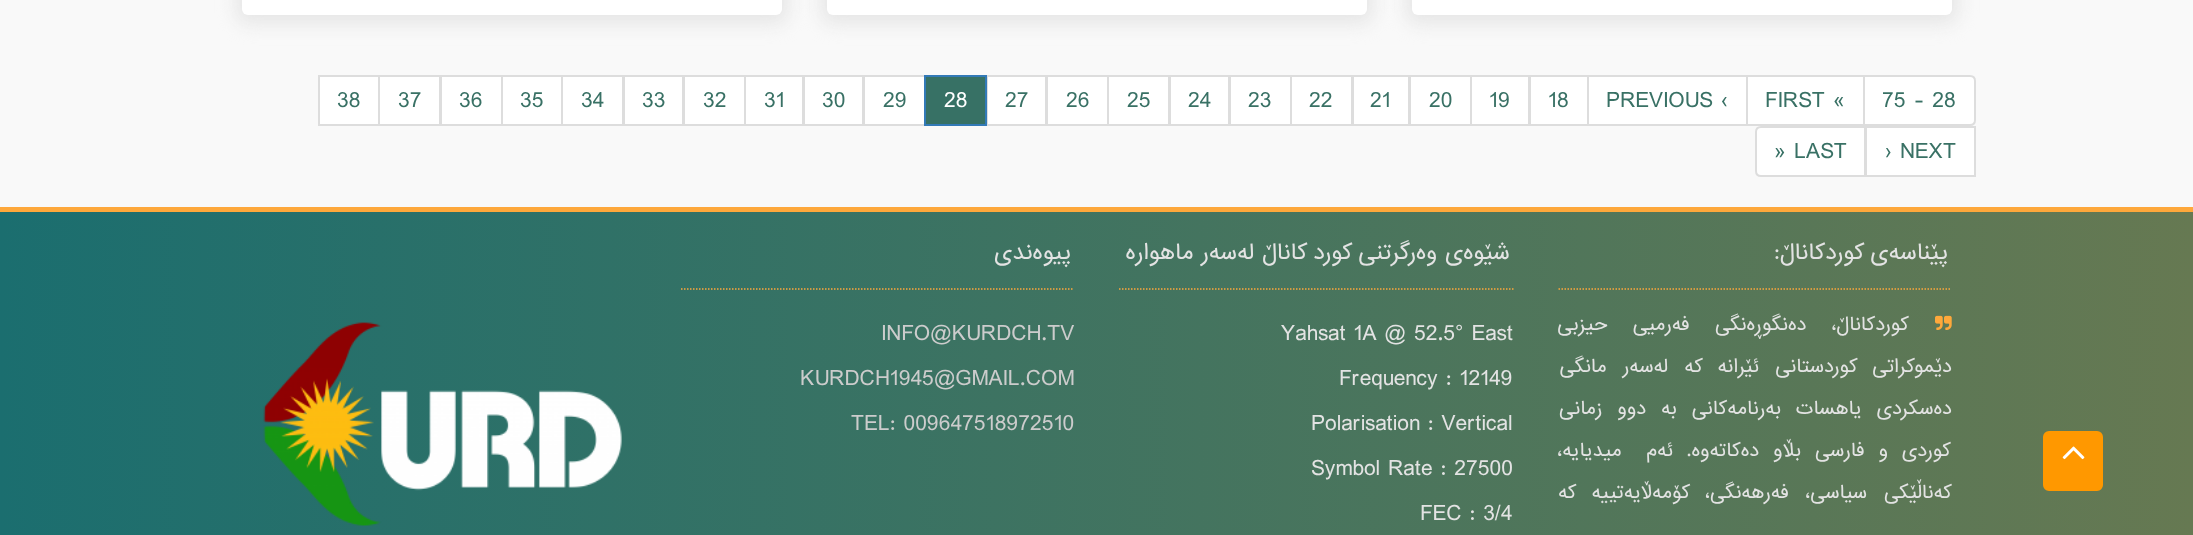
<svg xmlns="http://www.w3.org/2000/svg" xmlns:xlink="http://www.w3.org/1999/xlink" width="2193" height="535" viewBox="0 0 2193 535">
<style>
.cls-1{font:21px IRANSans;fill:#397165}
.cls-2{font:21px IRANSans;fill:#ffffff}
.cls-3{font:21px IRANSans;direction:rtl;fill:#e3e3e3}
.cls-4{font:18px IRANSans;direction:rtl;fill:#e3e3e3}
.cls-5{font:21px IRANSans;fill:#e3e3e3}
.cls-6{font:21px IRANSans;fill:#cccccc}
</style>
<defs>
<linearGradient id="g1" gradientUnits="userSpaceOnUse" x1="0" y1="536" x2="2193" y2="535"><stop offset="0" stop-color="#1b6e6f"/><stop offset="1" stop-color="#667952"/></linearGradient>
</defs>
<rect width="100%" height="100%" fill="#f9f9f9"/>
<rect fill="#e6e6e6" filter="blur(9px)" x="1406" y="-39" width="552" height="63" rx="12"/>
<rect fill="#ffffff" x="1412" y="-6" width="540" height="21" rx="6"/>
<rect fill="#e6e6e6" filter="blur(9px)" x="821" y="-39" width="552" height="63" rx="12"/>
<rect fill="#ffffff" x="827" y="-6" width="540" height="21" rx="6"/>
<rect fill="#e6e6e6" filter="blur(9px)" x="236" y="-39" width="552" height="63" rx="12"/>
<rect fill="#ffffff" x="242" y="-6" width="540" height="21" rx="6"/>
<path fill="#ffffff" stroke="#dddddd" stroke-width="2" d="M1864 76H1970C1973 76 1975 78 1975 81V120C1975 123 1973 125 1970 125H1864Z"/>
<rect fill="#ffffff" stroke="#dddddd" stroke-width="2" x="1747" y="76" width="117" height="49"/>
<rect fill="#ffffff" stroke="#dddddd" stroke-width="2" x="1588" y="76" width="159" height="49"/>
<rect fill="#ffffff" stroke="#dddddd" stroke-width="2" x="1530" y="76" width="58" height="49"/>
<rect fill="#ffffff" stroke="#dddddd" stroke-width="2" x="1471" y="76" width="58" height="49"/>
<rect fill="#ffffff" stroke="#dddddd" stroke-width="2" x="1410" y="76" width="61" height="49"/>
<rect fill="#ffffff" stroke="#dddddd" stroke-width="2" x="1353" y="76" width="56" height="49"/>
<rect fill="#ffffff" stroke="#dddddd" stroke-width="2" x="1291" y="76" width="61" height="49"/>
<rect fill="#ffffff" stroke="#dddddd" stroke-width="2" x="1230" y="76" width="61" height="49"/>
<rect fill="#ffffff" stroke="#dddddd" stroke-width="2" x="1170" y="76" width="59" height="49"/>
<rect fill="#ffffff" stroke="#dddddd" stroke-width="2" x="1108" y="76" width="61" height="49"/>
<rect fill="#ffffff" stroke="#dddddd" stroke-width="2" x="1047" y="76" width="61" height="49"/>
<rect fill="#ffffff" stroke="#dddddd" stroke-width="2" x="987" y="76" width="59" height="49"/>
<rect fill="#ffffff" stroke="#dddddd" stroke-width="2" x="864" y="76" width="61" height="49"/>
<rect fill="#377165" stroke="#337ab7" stroke-width="2" x="925" y="76" width="61" height="49"/>
<rect fill="#ffffff" stroke="#dddddd" stroke-width="2" x="804" y="76" width="59" height="49"/>
<rect fill="#ffffff" stroke="#dddddd" stroke-width="2" x="745" y="76" width="58" height="49"/>
<rect fill="#ffffff" stroke="#dddddd" stroke-width="2" x="684" y="76" width="61" height="49"/>
<rect fill="#ffffff" stroke="#dddddd" stroke-width="2" x="624" y="76" width="59" height="49"/>
<rect fill="#ffffff" stroke="#dddddd" stroke-width="2" x="562" y="76" width="61" height="49"/>
<rect fill="#ffffff" stroke="#dddddd" stroke-width="2" x="502" y="76" width="60" height="49"/>
<rect fill="#ffffff" stroke="#dddddd" stroke-width="2" x="441" y="76" width="61" height="49"/>
<rect fill="#ffffff" stroke="#dddddd" stroke-width="2" x="379" y="76" width="61" height="49"/>
<rect fill="#ffffff" stroke="#dddddd" stroke-width="2" x="319" y="76" width="60" height="49"/>
<rect fill="#ffffff" stroke="#dddddd" stroke-width="2" x="1866" y="127" width="109" height="49"/>
<path fill="#ffffff" stroke="#dddddd" stroke-width="2" d="M1761 127H1865V176H1761C1758 176 1756 174 1756 171V132C1756 129 1758 127 1761 127Z"/>
<rect fill="url(#g1)" x="0" y="212" width="2193" height="323"/>
<rect fill="#ff9800" stroke="#ff9800" stroke-width="2" x="2044" y="432" width="58" height="58" rx="5"/>
<image xlink:href="image0.png" x="2062" y="446" width="23" height="14"/>
<rect fill="#fea83b" x="0" y="207" width="2193" height="5"/>
<path fill="none" stroke="#fea83b" stroke-width="1.5" stroke-dasharray="1.5 1.5" d="M1558.5 289H1951.5"/>
<image xlink:href="image1.png" x="1935" y="315" width="17" height="15"/>
<path fill="none" stroke="#fea83b" stroke-width="1.5" stroke-dasharray="1.5 1.5" d="M1119 289H1513.5"/>
<path fill="none" stroke="#fea83b" stroke-width="1.5" stroke-dasharray="1.5 1.5" d="M681 289H1074"/>
<image xlink:href="image2.png" x="263" y="322" width="359" height="204"/>
<text class="cls-1" x="1882" y="107">75 - 28</text>
<text class="cls-1" x="1833" y="107">«</text>
<text class="cls-1" x="1765" y="107">FIRST</text>
<text class="cls-1" x="1721" y="107">‹</text>
<text class="cls-1" x="1606" y="107">PREVIOUS</text>
<text class="cls-1" x="1548" y="107">18</text>
<text class="cls-1" x="1489" y="107">19</text>
<text class="cls-1" x="1429" y="107">20</text>
<text class="cls-1" x="1370" y="107">21</text>
<text class="cls-1" x="1309" y="107">22</text>
<text class="cls-1" x="1248" y="107">23</text>
<text class="cls-1" x="1188" y="107">24</text>
<text class="cls-1" x="1127" y="107">25</text>
<text class="cls-1" x="1066" y="107">26</text>
<text class="cls-1" x="1005" y="107">27</text>
<text class="cls-2" x="944" y="107">28</text>
<text class="cls-1" x="883" y="107">29</text>
<text class="cls-1" x="822" y="107">30</text>
<text class="cls-1" x="764" y="107">31</text>
<text class="cls-1" x="703" y="107">32</text>
<text class="cls-1" x="642" y="107">33</text>
<text class="cls-1" x="581" y="107">34</text>
<text class="cls-1" x="520" y="107">35</text>
<text class="cls-1" x="459" y="107">36</text>
<text class="cls-1" x="398" y="107">37</text>
<text class="cls-1" x="337" y="107">38</text>
<text class="cls-1" x="1900" y="158">NEXT</text>
<text class="cls-1" x="1885" y="158">›</text>
<text class="cls-1" x="1794" y="158">LAST</text>
<text class="cls-1" x="1774" y="158">»</text>
<text class="cls-3" x="1948" y="259">پێناسەی کوردکاناڵ:</text>
<text class="cls-4" x="1909" y="330" word-spacing="18.5">کوردکاناڵ، دەنگوڕەنگی فەرمیی حیزبی</text>
<text class="cls-4" x="1952" y="372" word-spacing="9.5">دێموکراتی کوردستانی ئێرانە کە لەسەر مانگی</text>
<text class="cls-4" x="1952" y="414" word-spacing="8">دەسکردی یاهسات بەرنامەکانی بە دوو زمانی</text>
<text class="cls-4" x="1951" y="456" word-spacing="7">کوردی و فارسی بڵاو دەکاتەوە.</text>
<text class="cls-4" x="1673" y="456" word-spacing="18">ئەم میدیایە،</text>
<text class="cls-4" x="1952" y="498" word-spacing="10">کەناڵێکی سیاسی، فەرهەنگی، کۆمەڵایەتییە کە</text>
<text class="cls-3" x="1510" y="259">شێوەی وەرگرتنی کورد کاناڵ لەسەر ماهوارە</text>
<text class="cls-5" x="1281" y="340">Yahsat 1A @ 52.5° East</text>
<text class="cls-5" x="1339" y="385">Frequency : 12149</text>
<text class="cls-5" x="1311" y="430">Polarisation : Vertical</text>
<text class="cls-5" x="1311" y="475">Symbol Rate : 27500</text>
<text class="cls-5" x="1420" y="520">FEC : 3/4</text>
<text class="cls-3" x="1071" y="259">پیوه‌ندی</text>
<text class="cls-6" x="881" y="340">INFO@KURDCH.TV</text>
<text class="cls-6" x="800" y="385">KURDCH1945@GMAIL.COM</text>
<text class="cls-6" x="851" y="430">TEL: 009647518972510</text>
</svg>
